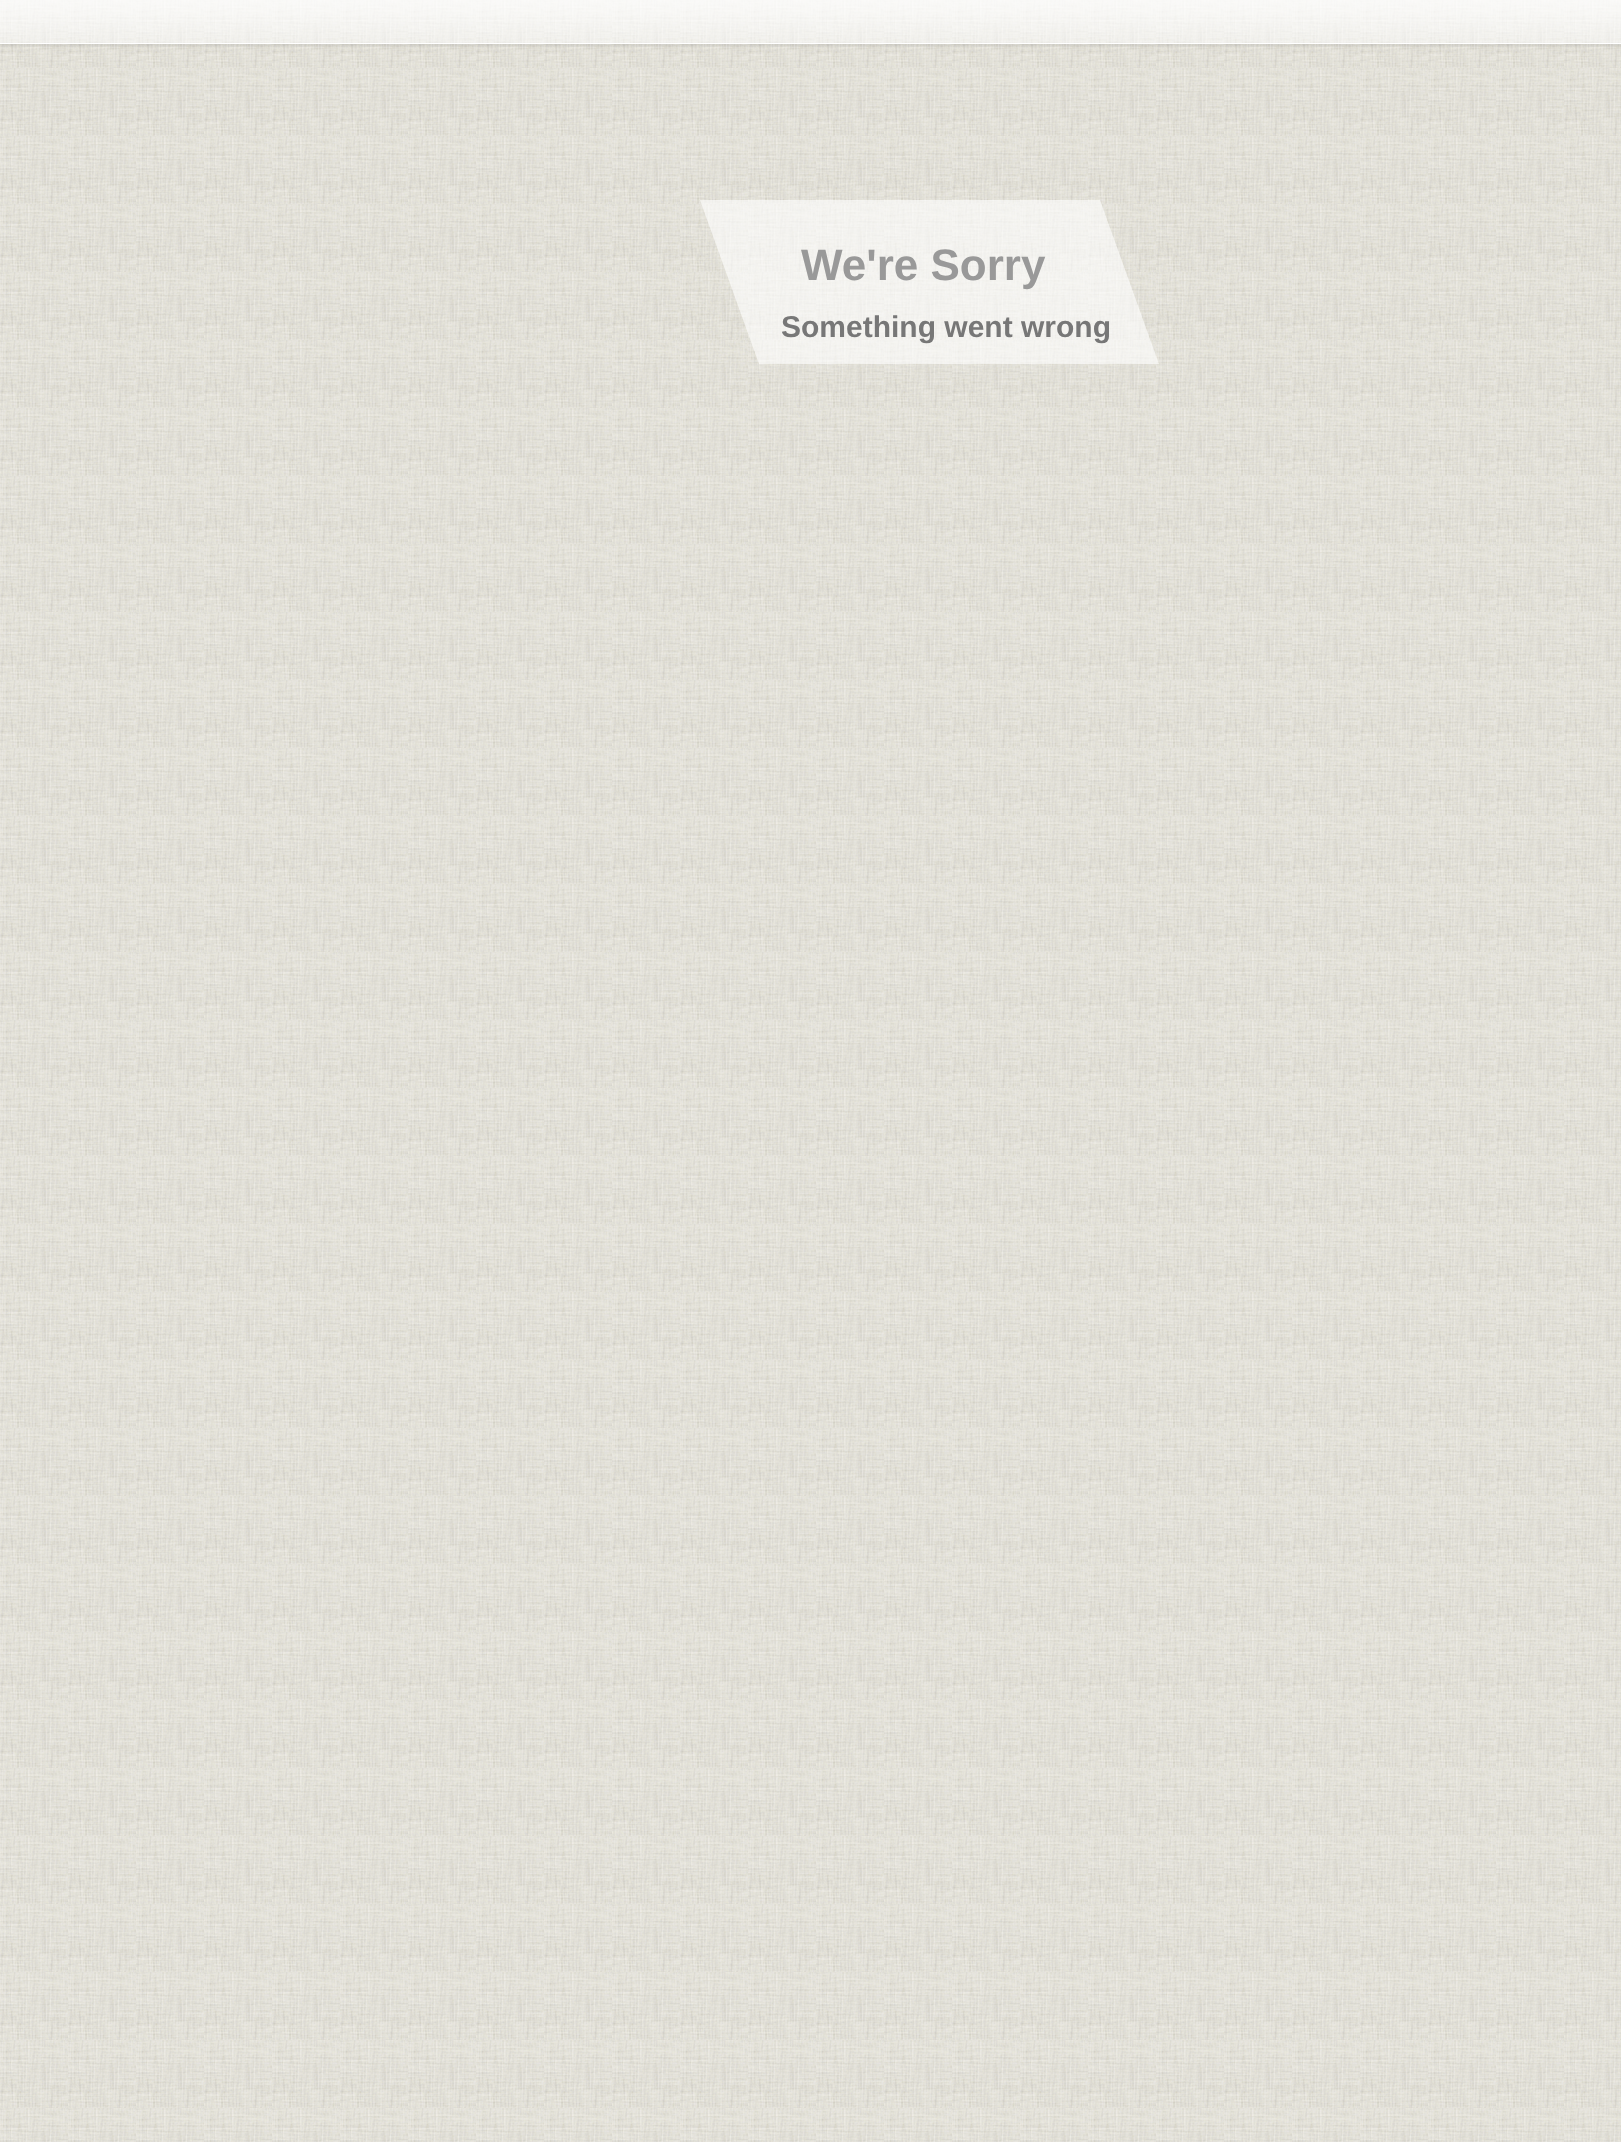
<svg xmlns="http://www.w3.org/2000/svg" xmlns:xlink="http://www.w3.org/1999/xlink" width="1621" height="2142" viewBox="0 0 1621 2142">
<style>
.cls-1{font:bold 44px Liberation Sans;fill:#999999}
.cls-2{font:bold 30px Liberation Sans;fill:#777777}
</style>
<rect width="100%" height="100%" fill="#ffffff"/>
<image xlink:href="image0.png" x="0" y="0" width="1621" height="2142"/>
<image xlink:href="image1.png" x="0" y="0" width="1621" height="47"/>
<path fill="#ffffff" fill-opacity="0.6" d="M700 200H1100L1159 364H759Z"/>
<text class="cls-1" x="801" y="280">We're Sorry</text>
<text class="cls-2" x="781" y="337">Something went wrong</text>
</svg>
